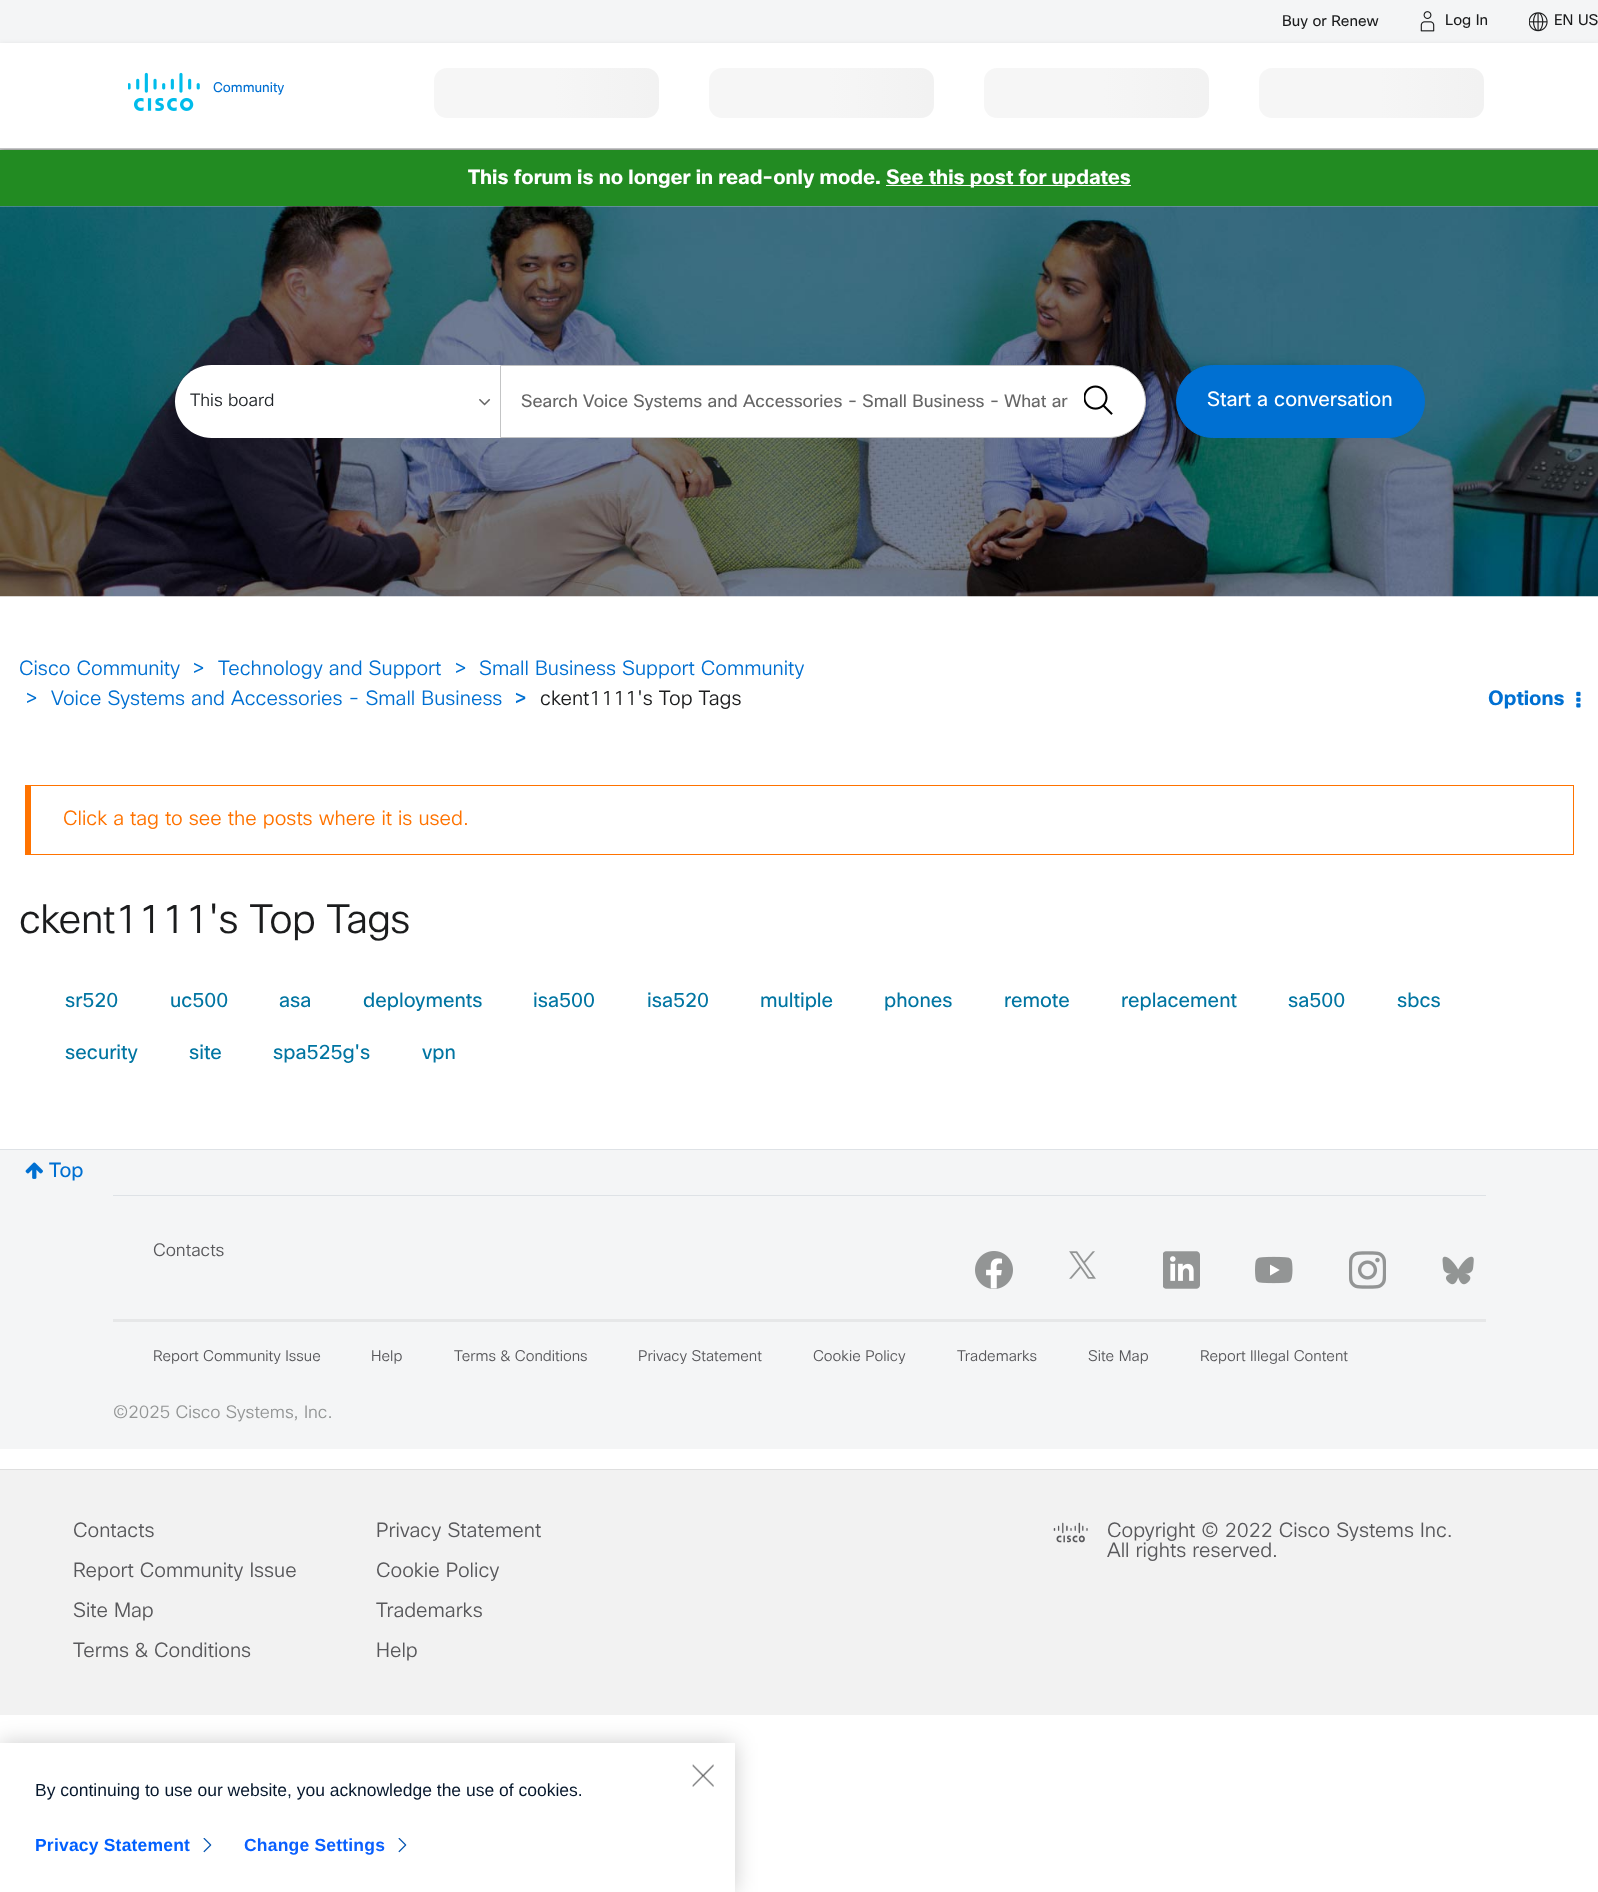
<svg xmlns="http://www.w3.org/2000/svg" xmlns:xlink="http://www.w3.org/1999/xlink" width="1598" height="1892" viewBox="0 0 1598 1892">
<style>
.cls-1{font:15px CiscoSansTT;fill:#1b1c1d}
.cls-2{font:13.5px CiscoSansTT;fill:#0070d2}
.cls-3{font:bold 20px CiscoSansTT;fill:#ffffff}
.cls-4{font:300 17.5px CiscoSansTT;fill:#212529}
.cls-5{font:17.5px CiscoSansTT;fill:#666666}
.cls-6{font:20px CiscoSansTT;fill:#ffffff}
.cls-7{font:300 20px CiscoSansTT;fill:#0070d2}
.cls-8{font:300 22px CiscoSansTT;fill:#0070d2}
.cls-9{font:22px CiscoSansTT;fill:#0070d2}
.cls-10{font:300 20px CiscoSansTT;fill:#1b1c1d}
.cls-11{font:bold 20px CiscoSansTT;fill:#0070d2}
.cls-12{font:300 20px CiscoSansTT;fill:#ff7300}
.cls-13{font:300 40px CiscoSansTT;letter-spacing:-0.6px;fill:#1b1c1d}
.cls-14{font:20px CiscoSansTT;fill:#0175a2}
.cls-15{font:20px CiscoSansTT;fill:#0070d2}
.cls-16{font:300 17.5px CiscoSansTT;fill:#58585b}
.cls-17{font:300 15px CiscoSansTT;fill:#58585b}
.cls-18{font:300 17.5px CiscoSansTT;fill:#939595}
.cls-19{font:300 20px CiscoSansTT;fill:#58585b}
.cls-20{font:17.5px Liberation Sans;fill:#07182d}
.cls-21{font:bold 17.5px Liberation Sans;letter-spacing:0.2px;fill:#0060ff}
.cls-22{font:bold 17.5px Liberation Sans;letter-spacing:0.2px;fill:#0a60ff}
</style>
<defs>
<linearGradient id="g1" gradientUnits="userSpaceOnUse" x1="434" y1="93" x2="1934" y2="92"><stop offset="0.08" stop-color="#f6f6f6"/><stop offset="0.18" stop-color="#f0f0f0"/><stop offset="0.33" stop-color="#f6f6f6"/></linearGradient>
<linearGradient id="g2" gradientUnits="userSpaceOnUse" x1="709" y1="93" x2="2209" y2="92"><stop offset="0.08" stop-color="#f6f6f6"/><stop offset="0.18" stop-color="#f0f0f0"/><stop offset="0.33" stop-color="#f6f6f6"/></linearGradient>
<linearGradient id="g3" gradientUnits="userSpaceOnUse" x1="984" y1="93" x2="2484" y2="92"><stop offset="0.08" stop-color="#f6f6f6"/><stop offset="0.18" stop-color="#f0f0f0"/><stop offset="0.33" stop-color="#f6f6f6"/></linearGradient>
<linearGradient id="g4" gradientUnits="userSpaceOnUse" x1="1259" y1="93" x2="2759" y2="92"><stop offset="0.08" stop-color="#f6f6f6"/><stop offset="0.18" stop-color="#f0f0f0"/><stop offset="0.33" stop-color="#f6f6f6"/></linearGradient>
<clipPath id="clip1"><path d="M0 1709H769V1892H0ZM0 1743H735V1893H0Z" clip-rule="evenodd"/></clipPath>
</defs>
<rect width="100%" height="100%" fill="#ffffff"/>
<rect fill="#c3c4c5" x="0" y="149" width="1598" height="1"/>
<rect fill="#000000" fill-opacity="0.12" filter="blur(3px)" x="0" y="3" width="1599" height="148"/>
<rect fill="#f4f5f6" x="0" y="0" width="1598" height="43"/>
<image xlink:href="image0.png" x="1420" y="11" width="15" height="21"/>
<image xlink:href="image1.png" x="1529" y="12" width="19" height="20"/>
<rect fill="#000000" fill-opacity="0.12" filter="blur(3px)" x="0" y="45" width="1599" height="106"/>
<rect fill="#ffffff" x="0" y="43" width="1598" height="105"/>
<rect fill="#c3c4c5" x="0" y="148" width="1598" height="1"/>
<image xlink:href="image2.png" x="128" y="72" width="72" height="39"/>
<rect fill="url(#g1)" x="434" y="68" width="225" height="50" rx="13"/>
<rect fill="url(#g2)" x="709" y="68" width="225" height="50" rx="13"/>
<rect fill="url(#g3)" x="984" y="68" width="225" height="50" rx="13"/>
<rect fill="url(#g4)" x="1259" y="68" width="225" height="50" rx="13"/>
<rect fill="#228b22" x="0" y="150" width="1598" height="56"/>
<rect fill="#ffffff" x="886" y="185" width="245" height="1"/>
<image xlink:href="image3.png" x="0" y="206" width="1598" height="391"/>
<path fill="#ffffff" d="M211.5 365H506V438H211.5C191.5 438 175 421.5 175 401.5C175 381.5 191.5 365 211.5 365Z"/>
<image xlink:href="image4.png" x="479" y="399" width="12" height="7"/>
<path fill="#ffffff" stroke="#c3c4c5" d="M500.5 365.5H1109.5C1129.5 365.5 1145.5 381.5 1145.5 401.5C1145.5 421.5 1129.5 437.5 1109.5 437.5H500.5Z"/>
<image xlink:href="image5.png" x="1084" y="385" width="29" height="30"/>
<rect fill="#0070d2" stroke="#0070d2" x="1176.5" y="365.5" width="248" height="72" rx="36"/>
<image xlink:href="image6.png" x="1576" y="691" width="5" height="17"/>
<rect fill="#ff7300" x="25" y="785" width="1549" height="1"/>
<rect fill="#ff7300" x="1573" y="785" width="1" height="70"/>
<rect fill="#ff7300" x="25" y="854" width="1549" height="1"/>
<rect fill="#ff7300" x="25" y="785" width="6" height="70"/>
<rect fill="#f4f5f6" x="0" y="1150" width="1598" height="299"/>
<image xlink:href="image7.png" x="25" y="1162" width="18" height="17"/>
<rect fill="#dee2e6" x="0" y="1149" width="1598" height="1"/>
<rect fill="#dee2e6" x="113" y="1195" width="1373" height="1"/>
<rect fill="#e6e7e8" x="113" y="1319" width="1373" height="3"/>
<image xlink:href="image8.png" x="975" y="1251" width="38" height="38"/>
<image xlink:href="image9.png" x="1069" y="1251" width="27" height="28"/>
<image xlink:href="image10.png" x="1163" y="1251" width="37" height="38"/>
<image xlink:href="image11.png" x="1255" y="1256" width="38" height="28"/>
<image xlink:href="image12.png" x="1349" y="1251" width="37" height="38"/>
<image xlink:href="image13.png" x="1442" y="1256" width="32" height="29"/>
<rect fill="#f2f2f2" x="0" y="1470" width="1598" height="245"/>
<rect fill="#dfdfdf" x="0" y="1469" width="1598" height="1"/>
<image xlink:href="image14.png" x="1053" y="1522" width="35" height="21"/>
<g clip-path="url(#clip1)">
<rect fill="#000000" fill-opacity="0.2" filter="blur(11px)" x="0" y="1743" width="735" height="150"/>
</g>
<image xlink:href="image15.png" x="692" y="1764" width="22" height="23"/>
<image xlink:href="image16.png" x="203" y="1838" width="9" height="15"/>
<image xlink:href="image16.png" x="398" y="1838" width="9" height="15"/>
<text class="cls-1" x="1282" y="26">Buy or Renew</text>
<text class="cls-1" x="1445" y="25">Log In</text>
<text class="cls-1" x="1554" y="25">EN US</text>
<text class="cls-2" x="213" y="92">Community</text>
<text class="cls-3" x="468" y="184">This forum is no longer in read-only mode.</text>
<text class="cls-3" x="886" y="184">See this post for updates</text>
<text class="cls-4" x="190" y="406">This board</text>
<text class="cls-5" x="521" y="407">Search Voice Systems and Accessories - Small Business - What ar</text>
<text class="cls-6" x="1207" y="406">Start a conversation</text>
<text class="cls-7" x="19" y="675">Cisco Community</text>
<text class="cls-8" x="192" y="675">&gt;</text>
<text class="cls-7" x="218" y="675">Technology and Support</text>
<text class="cls-8" x="454" y="675">&gt;</text>
<text class="cls-7" x="479" y="675">Small Business Support Community</text>
<text class="cls-8" x="25" y="705">&gt;</text>
<text class="cls-7" x="51" y="705">Voice Systems and Accessories - Small Business</text>
<text class="cls-9" x="514" y="705">&gt;</text>
<text class="cls-10" x="540" y="705">ckent1111's Top Tags</text>
<text class="cls-11" x="1488" y="705">Options</text>
<text class="cls-12" x="63" y="825">Click a tag to see the posts where it is used.</text>
<text class="cls-13" x="19" y="933">ckent1111's Top Tags</text>
<text class="cls-14" x="65" y="1007">sr520</text>
<text class="cls-14" x="170" y="1007">uc500</text>
<text class="cls-14" x="279" y="1007">asa</text>
<text class="cls-14" x="363" y="1007">deployments</text>
<text class="cls-14" x="533" y="1007">isa500</text>
<text class="cls-14" x="647" y="1007">isa520</text>
<text class="cls-14" x="760" y="1007">multiple</text>
<text class="cls-14" x="884" y="1007">phones</text>
<text class="cls-14" x="1004" y="1007">remote</text>
<text class="cls-14" x="1121" y="1007">replacement</text>
<text class="cls-14" x="1288" y="1007">sa500</text>
<text class="cls-14" x="1397" y="1007">sbcs</text>
<text class="cls-14" x="65" y="1059">security</text>
<text class="cls-14" x="189" y="1059">site</text>
<text class="cls-14" x="273" y="1059">spa525g's</text>
<text class="cls-14" x="422" y="1059">vpn</text>
<text class="cls-15" x="49" y="1177">Top</text>
<text class="cls-16" x="153" y="1256">Contacts</text>
<text class="cls-17" x="153" y="1361">Report Community Issue</text>
<text class="cls-17" x="371" y="1361">Help</text>
<text class="cls-17" x="454" y="1361">Terms &amp; Conditions</text>
<text class="cls-17" x="638" y="1361">Privacy Statement</text>
<text class="cls-17" x="813" y="1361">Cookie Policy</text>
<text class="cls-17" x="957" y="1361">Trademarks</text>
<text class="cls-17" x="1088" y="1361">Site Map</text>
<text class="cls-17" x="1200" y="1361">Report Illegal Content</text>
<text class="cls-18" x="113" y="1418">©2025 Cisco Systems, Inc.</text>
<text class="cls-19" x="73" y="1537">Contacts</text>
<text class="cls-19" x="73" y="1577">Report Community Issue</text>
<text class="cls-19" x="73" y="1617">Site Map</text>
<text class="cls-19" x="73" y="1657">Terms &amp; Conditions</text>
<text class="cls-19" x="376" y="1537">Privacy Statement</text>
<text class="cls-19" x="376" y="1577">Cookie Policy</text>
<text class="cls-19" x="376" y="1617">Trademarks</text>
<text class="cls-19" x="376" y="1657">Help</text>
<text class="cls-19"><tspan x="1107" y="1537">Copyright © 2022 Cisco Systems Inc.</tspan><tspan x="1107" y="1557">All rights reserved.</tspan></text>
<text class="cls-20" x="35" y="1796">By continuing to use our website, you acknowledge the use of cookies.</text>
<text class="cls-21" x="35" y="1851">Privacy Statement</text>
<text class="cls-22" x="244" y="1851">Change Settings</text>
</svg>
